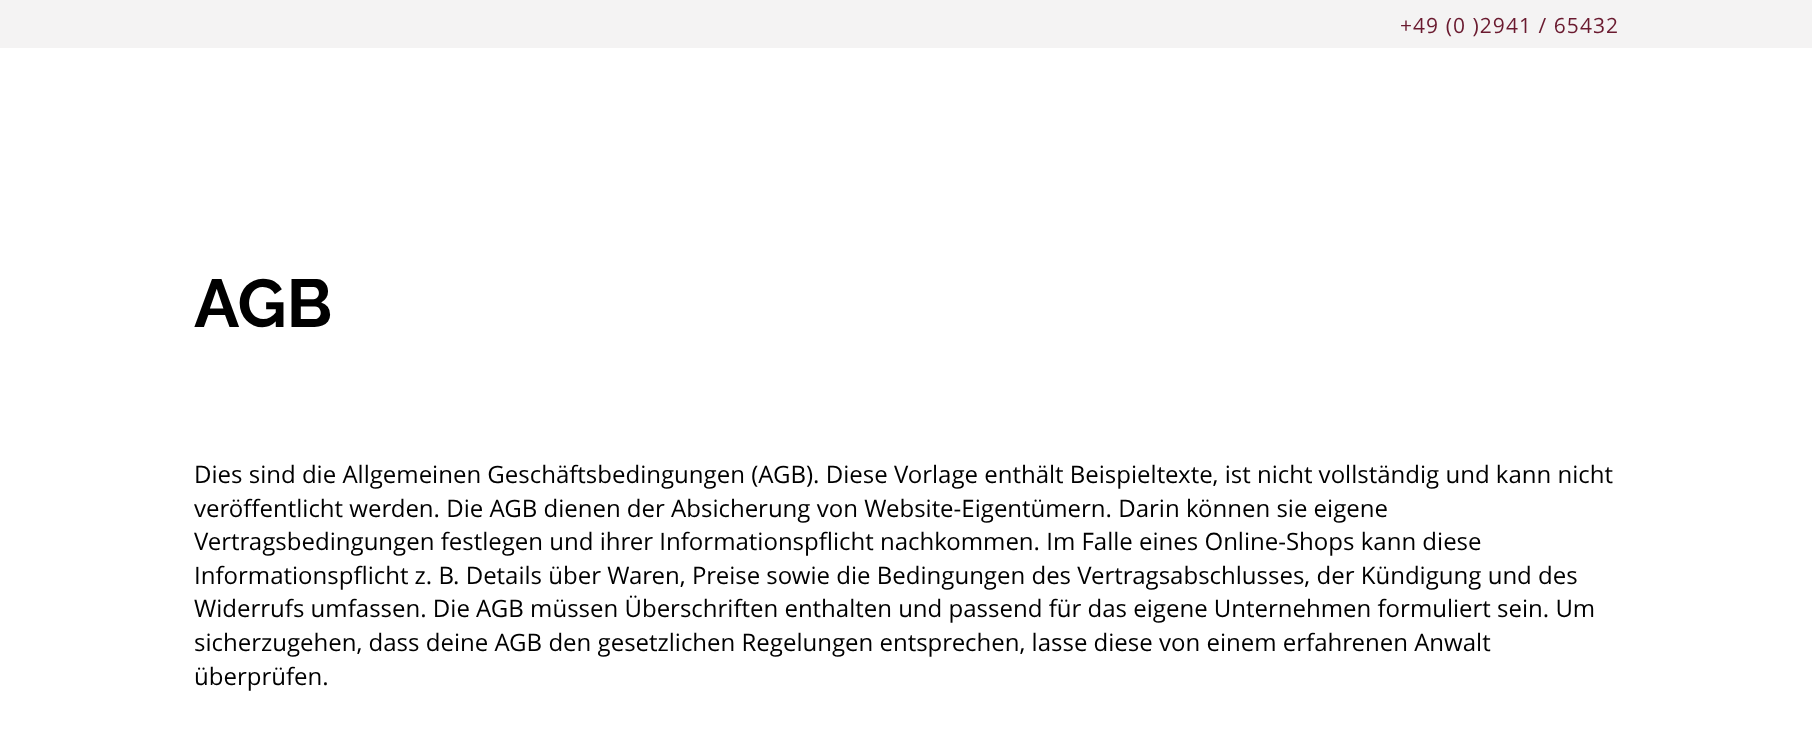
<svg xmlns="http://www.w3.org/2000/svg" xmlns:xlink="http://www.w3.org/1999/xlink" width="1812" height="737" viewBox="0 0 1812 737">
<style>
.cls-1{font:21px Open Sans;letter-spacing:1.05px;fill:#6a1a2f}
.cls-2{font:bold 67.5px Raleway;fill:#000000}
.cls-3{font:24px Open Sans;fill:#000000}
</style>
<rect width="100%" height="100%" fill="#ffffff"/>
<rect fill="#f4f3f3" x="0" y="0" width="1812" height="48"/>
<text class="cls-1" x="1400" y="33">+49 (0 )2941 / 65432</text>
<text class="cls-2" x="194" y="327">AGB</text>
<text class="cls-3"><tspan x="194" y="483">Dies sind die Allgemeinen Geschäftsbedingungen (AGB). Diese Vorlage enthält Beispieltexte, ist nicht vollständig und kann nicht</tspan><tspan x="194" y="517">veröffentlicht werden. Die AGB dienen der Absicherung von Website-Eigentümern. Darin können sie eigene</tspan><tspan x="194" y="550">Vertragsbedingungen festlegen und ihrer Informationspflicht nachkommen. Im Falle eines Online-Shops kann diese</tspan><tspan x="194" y="584">Informationspflicht z. B. Details über Waren, Preise sowie die Bedingungen des Vertragsabschlusses, der Kündigung und des</tspan><tspan x="194" y="617">Widerrufs umfassen. Die AGB müssen Überschriften enthalten und passend für das eigene Unternehmen formuliert sein. Um</tspan><tspan x="194" y="651">sicherzugehen, dass deine AGB den gesetzlichen Regelungen entsprechen, lasse diese von einem erfahrenen Anwalt</tspan><tspan x="194" y="685">überprüfen.</tspan></text>
</svg>
